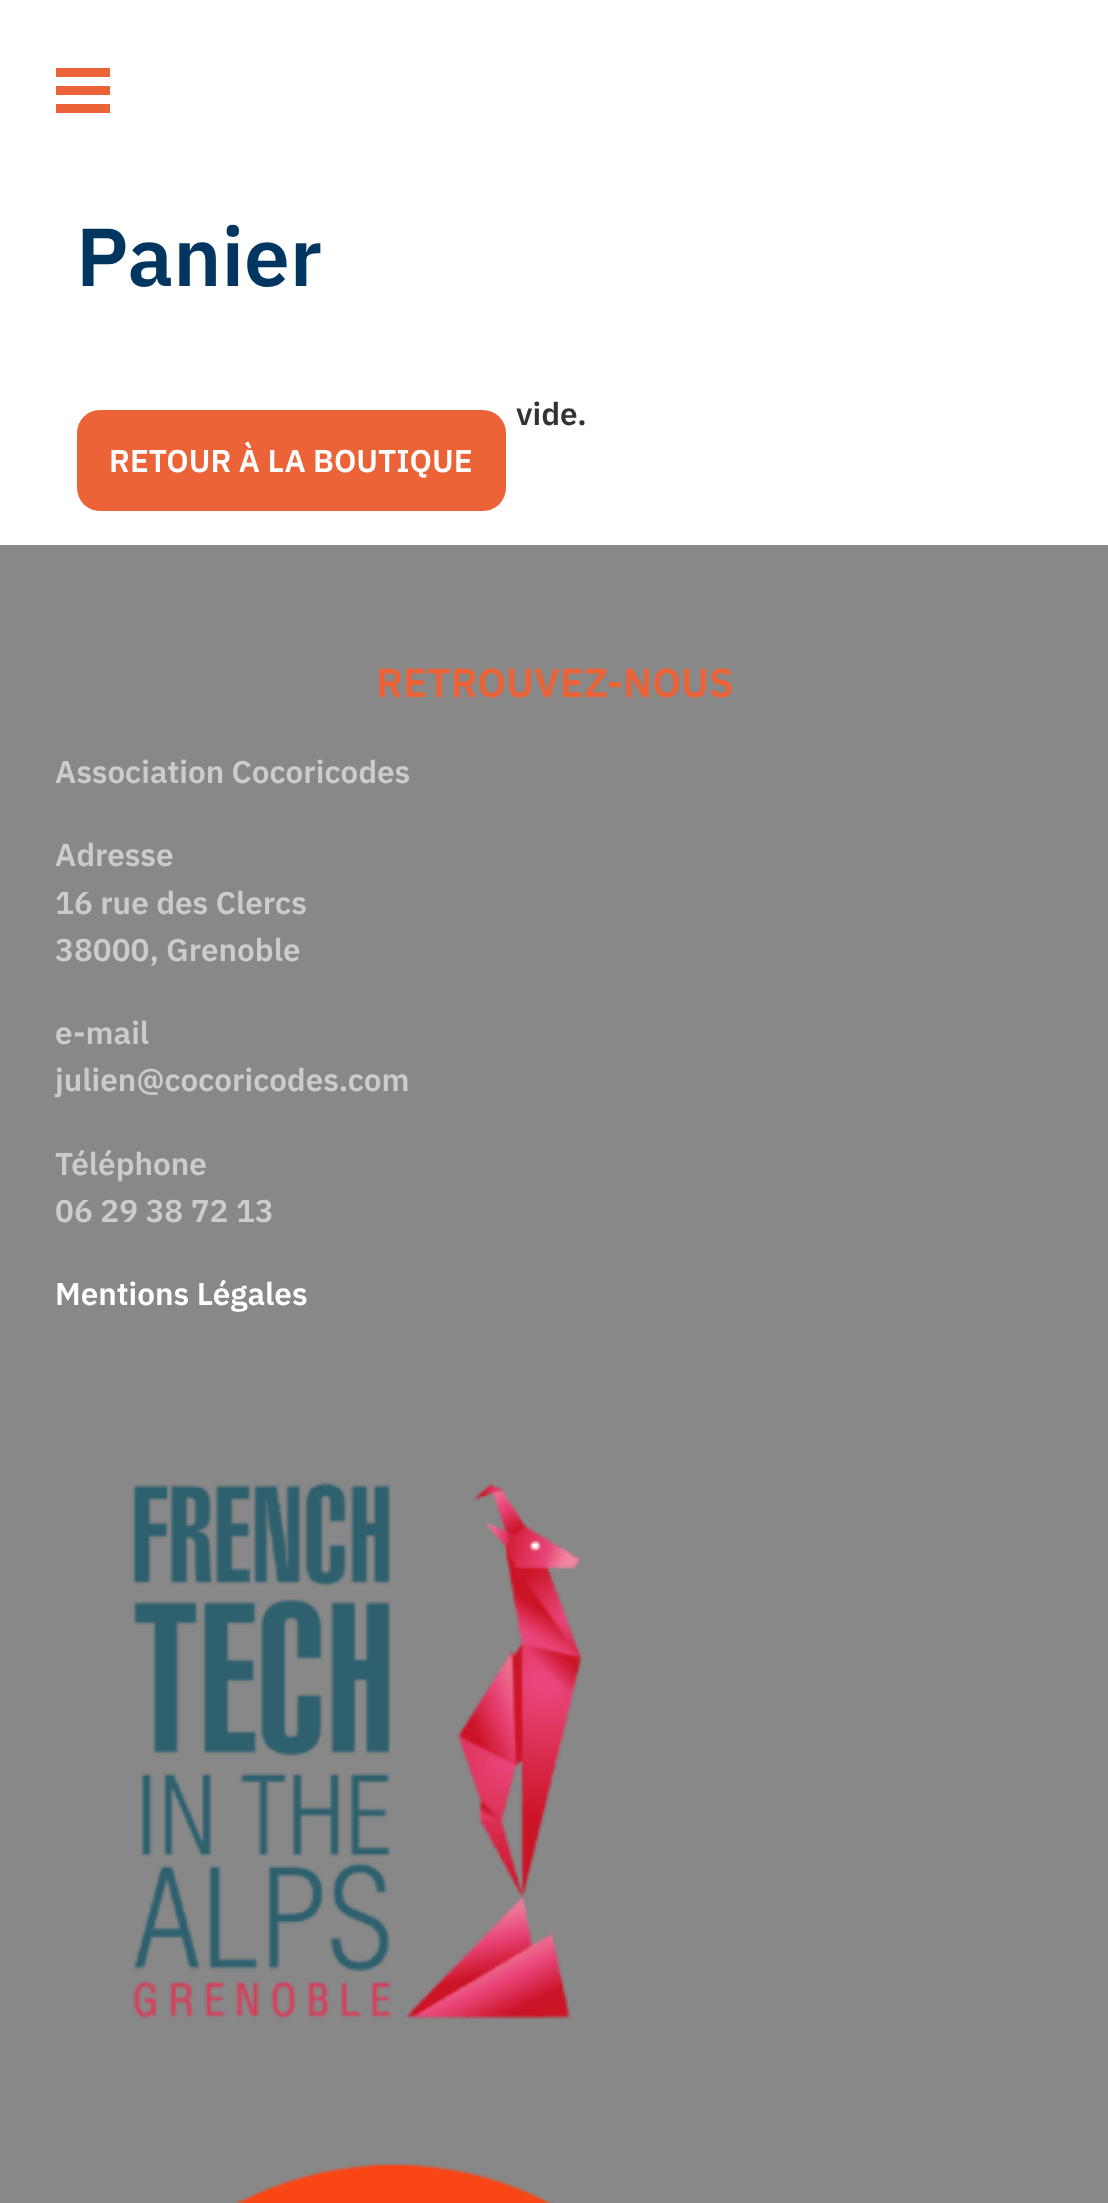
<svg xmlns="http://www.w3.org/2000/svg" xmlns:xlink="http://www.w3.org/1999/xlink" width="1108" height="2203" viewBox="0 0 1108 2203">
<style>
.cls-1{font:600 82px IBM Plex Sans;fill:#00365f}
.cls-2{font:600 31.5px IBM Plex Sans;fill:#333333}
.cls-3{font:600 31.5px IBM Plex Sans;fill:#ffffff}
.cls-4{font:600 40.5px IBM Plex Sans;fill:#ec6338}
.cls-5{font:600 31.5px IBM Plex Sans;fill:#cccccc}
</style>
<rect width="100%" height="100%" fill="#ffffff"/>
<rect fill="#ec6338" x="56" y="68" width="54" height="9"/>
<rect fill="#ec6338" x="56" y="86" width="54" height="9"/>
<rect fill="#ec6338" x="56" y="104" width="54" height="9"/>
<rect fill="#ec6338" x="77" y="410" width="429" height="101" rx="23"/>
<rect fill="#888888" x="0" y="545" width="1108" height="1658"/>
<image xlink:href="image0.png" x="132" y="1482" width="451" height="537"/>
<image xlink:href="image1.png" x="233" y="2164" width="321" height="39"/>
<text class="cls-1" x="76" y="286">Panier</text>
<text class="cls-2" x="516" y="425">vide.</text>
<text class="cls-3" x="109" y="472">RETOUR À LA BOUTIQUE</text>
<text class="cls-4" x="376" y="697">RETROUVEZ-NOUS</text>
<text class="cls-5" x="55" y="783">Association Cocoricodes</text>
<text class="cls-5"><tspan x="55" y="866">Adresse</tspan><tspan x="55" y="914">16 rue des Clercs</tspan><tspan x="55" y="961">38000, Grenoble</tspan></text>
<text class="cls-5"><tspan x="55" y="1044">e-mail</tspan><tspan x="55" y="1091">julien@cocoricodes.com</tspan></text>
<text class="cls-5"><tspan x="55" y="1175">Téléphone</tspan><tspan x="55" y="1222">06 29 38 72 13</tspan></text>
<text class="cls-3" x="55" y="1305">Mentions Légales</text>
</svg>
